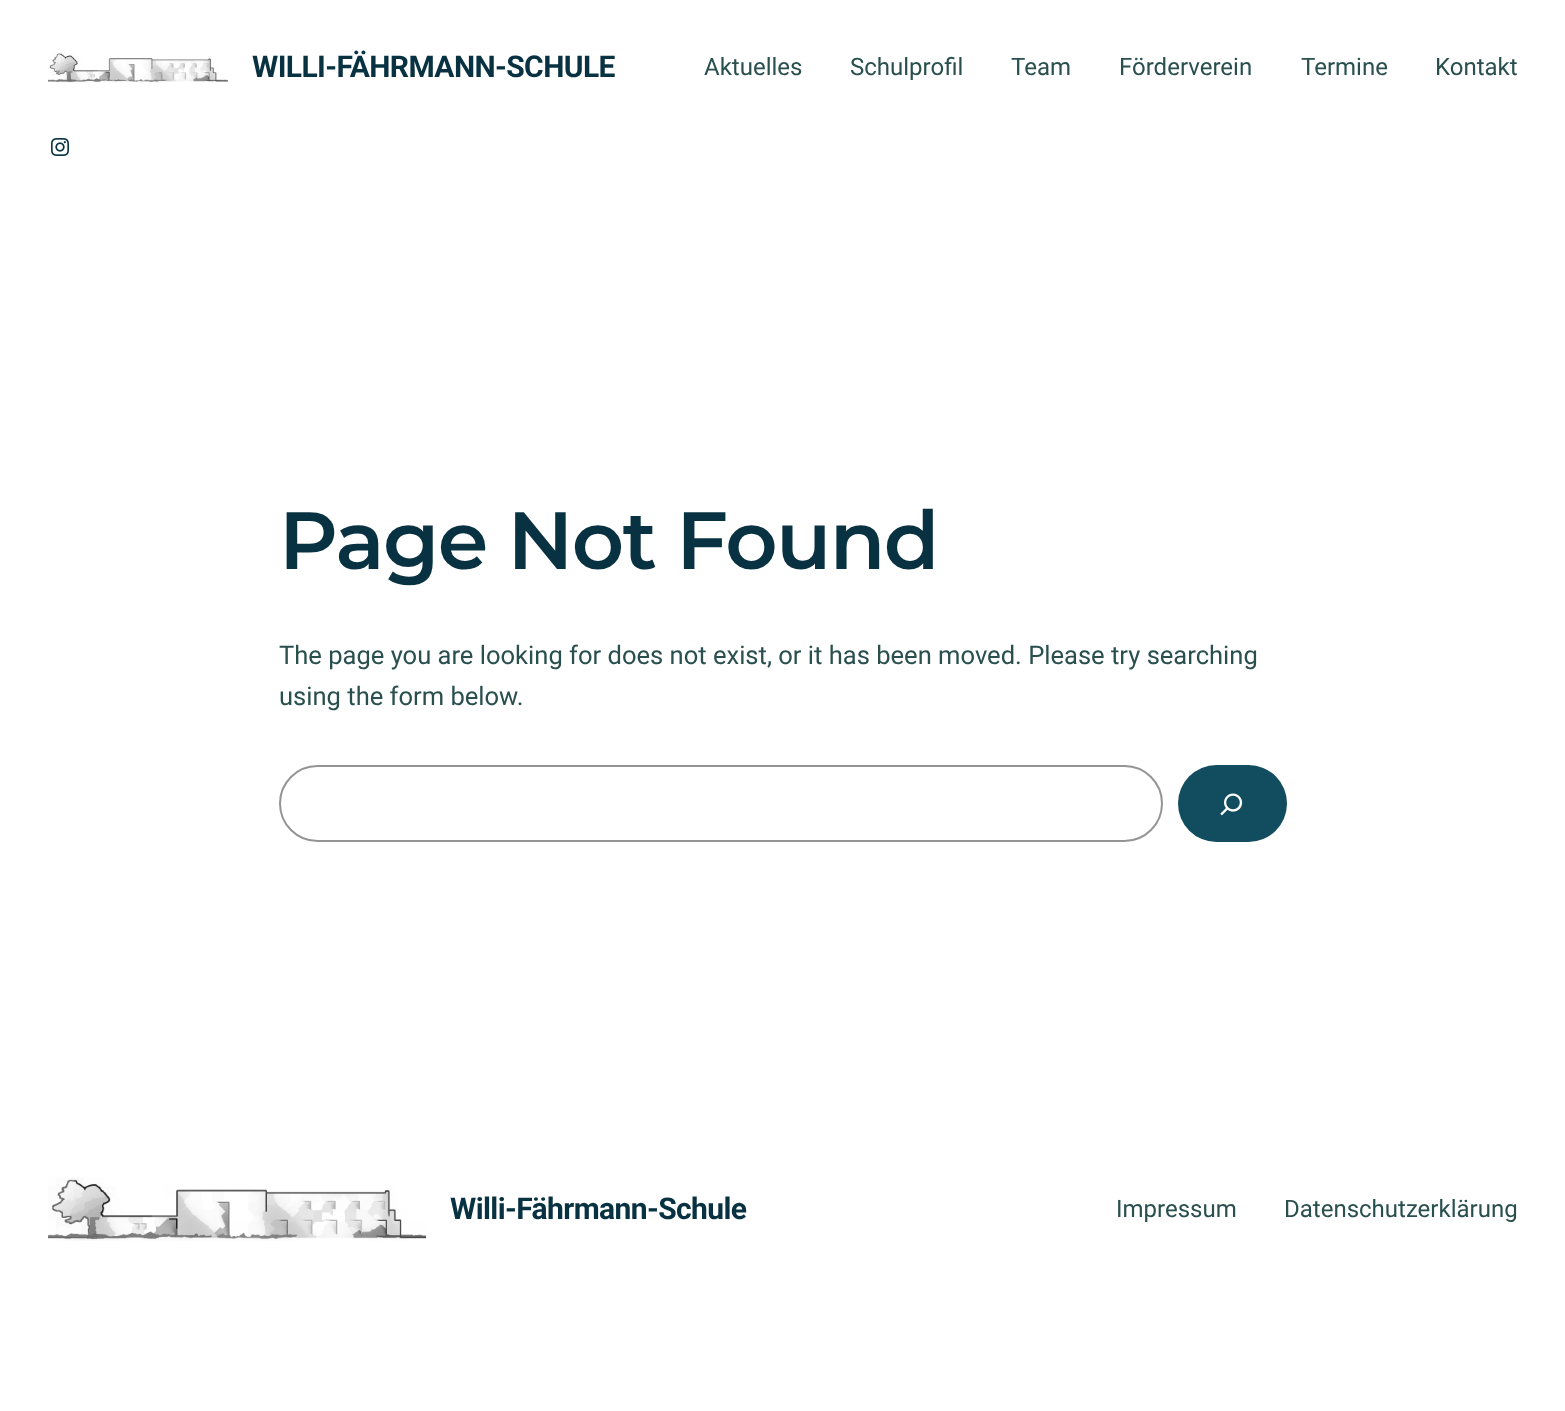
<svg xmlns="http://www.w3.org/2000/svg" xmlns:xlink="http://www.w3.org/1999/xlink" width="1565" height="1411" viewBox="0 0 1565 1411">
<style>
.cls-1{font:bold 30px Roboto;letter-spacing:-0.6px;fill:#083141}
.cls-2{font:24px Roboto;fill:#2a4f4f}
.cls-3{font:600 81.25px Montserrat;letter-spacing:-1.6px;fill:#083141}
.cls-4{font:25.55px Roboto;fill:#2a4f4f}
</style>
<rect width="100%" height="100%" fill="#ffffff"/>
<image xlink:href="image0.png" x="48" y="52" width="180" height="31"/>
<image xlink:href="image1.png" x="51" y="138" width="18" height="18"/>
<rect fill="none" stroke="#949494" stroke-width="2" x="280" y="766" width="882" height="75" rx="37.5"/>
<rect fill="#114c5f" x="1178" y="765" width="109" height="77" rx="38.5"/>
<image xlink:href="image2.png" x="1220" y="793" width="23" height="23"/>
<image xlink:href="image3.png" x="48" y="1177" width="378" height="64"/>
<text class="cls-1" x="252" y="77">WILLI-FÄHRMANN-SCHULE</text>
<text class="cls-2" x="704" y="75">Aktuelles</text>
<text class="cls-2" x="850" y="75">Schulprofil</text>
<text class="cls-2" x="1011" y="75">Team</text>
<text class="cls-2" x="1119" y="75">Förderverein</text>
<text class="cls-2" x="1301" y="75">Termine</text>
<text class="cls-2" x="1435" y="75">Kontakt</text>
<text class="cls-3" x="279" y="569">Page Not Found</text>
<text class="cls-4"><tspan x="279" y="664">The page you are looking for does not exist, or it has been moved. Please try searching</tspan><tspan x="279" y="705">using the form below.</tspan></text>
<text class="cls-1" x="450" y="1219">Willi-Fährmann-Schule</text>
<text class="cls-2" x="1116" y="1217">Impressum</text>
<text class="cls-2" x="1284" y="1217">Datenschutzerklärung</text>
</svg>
